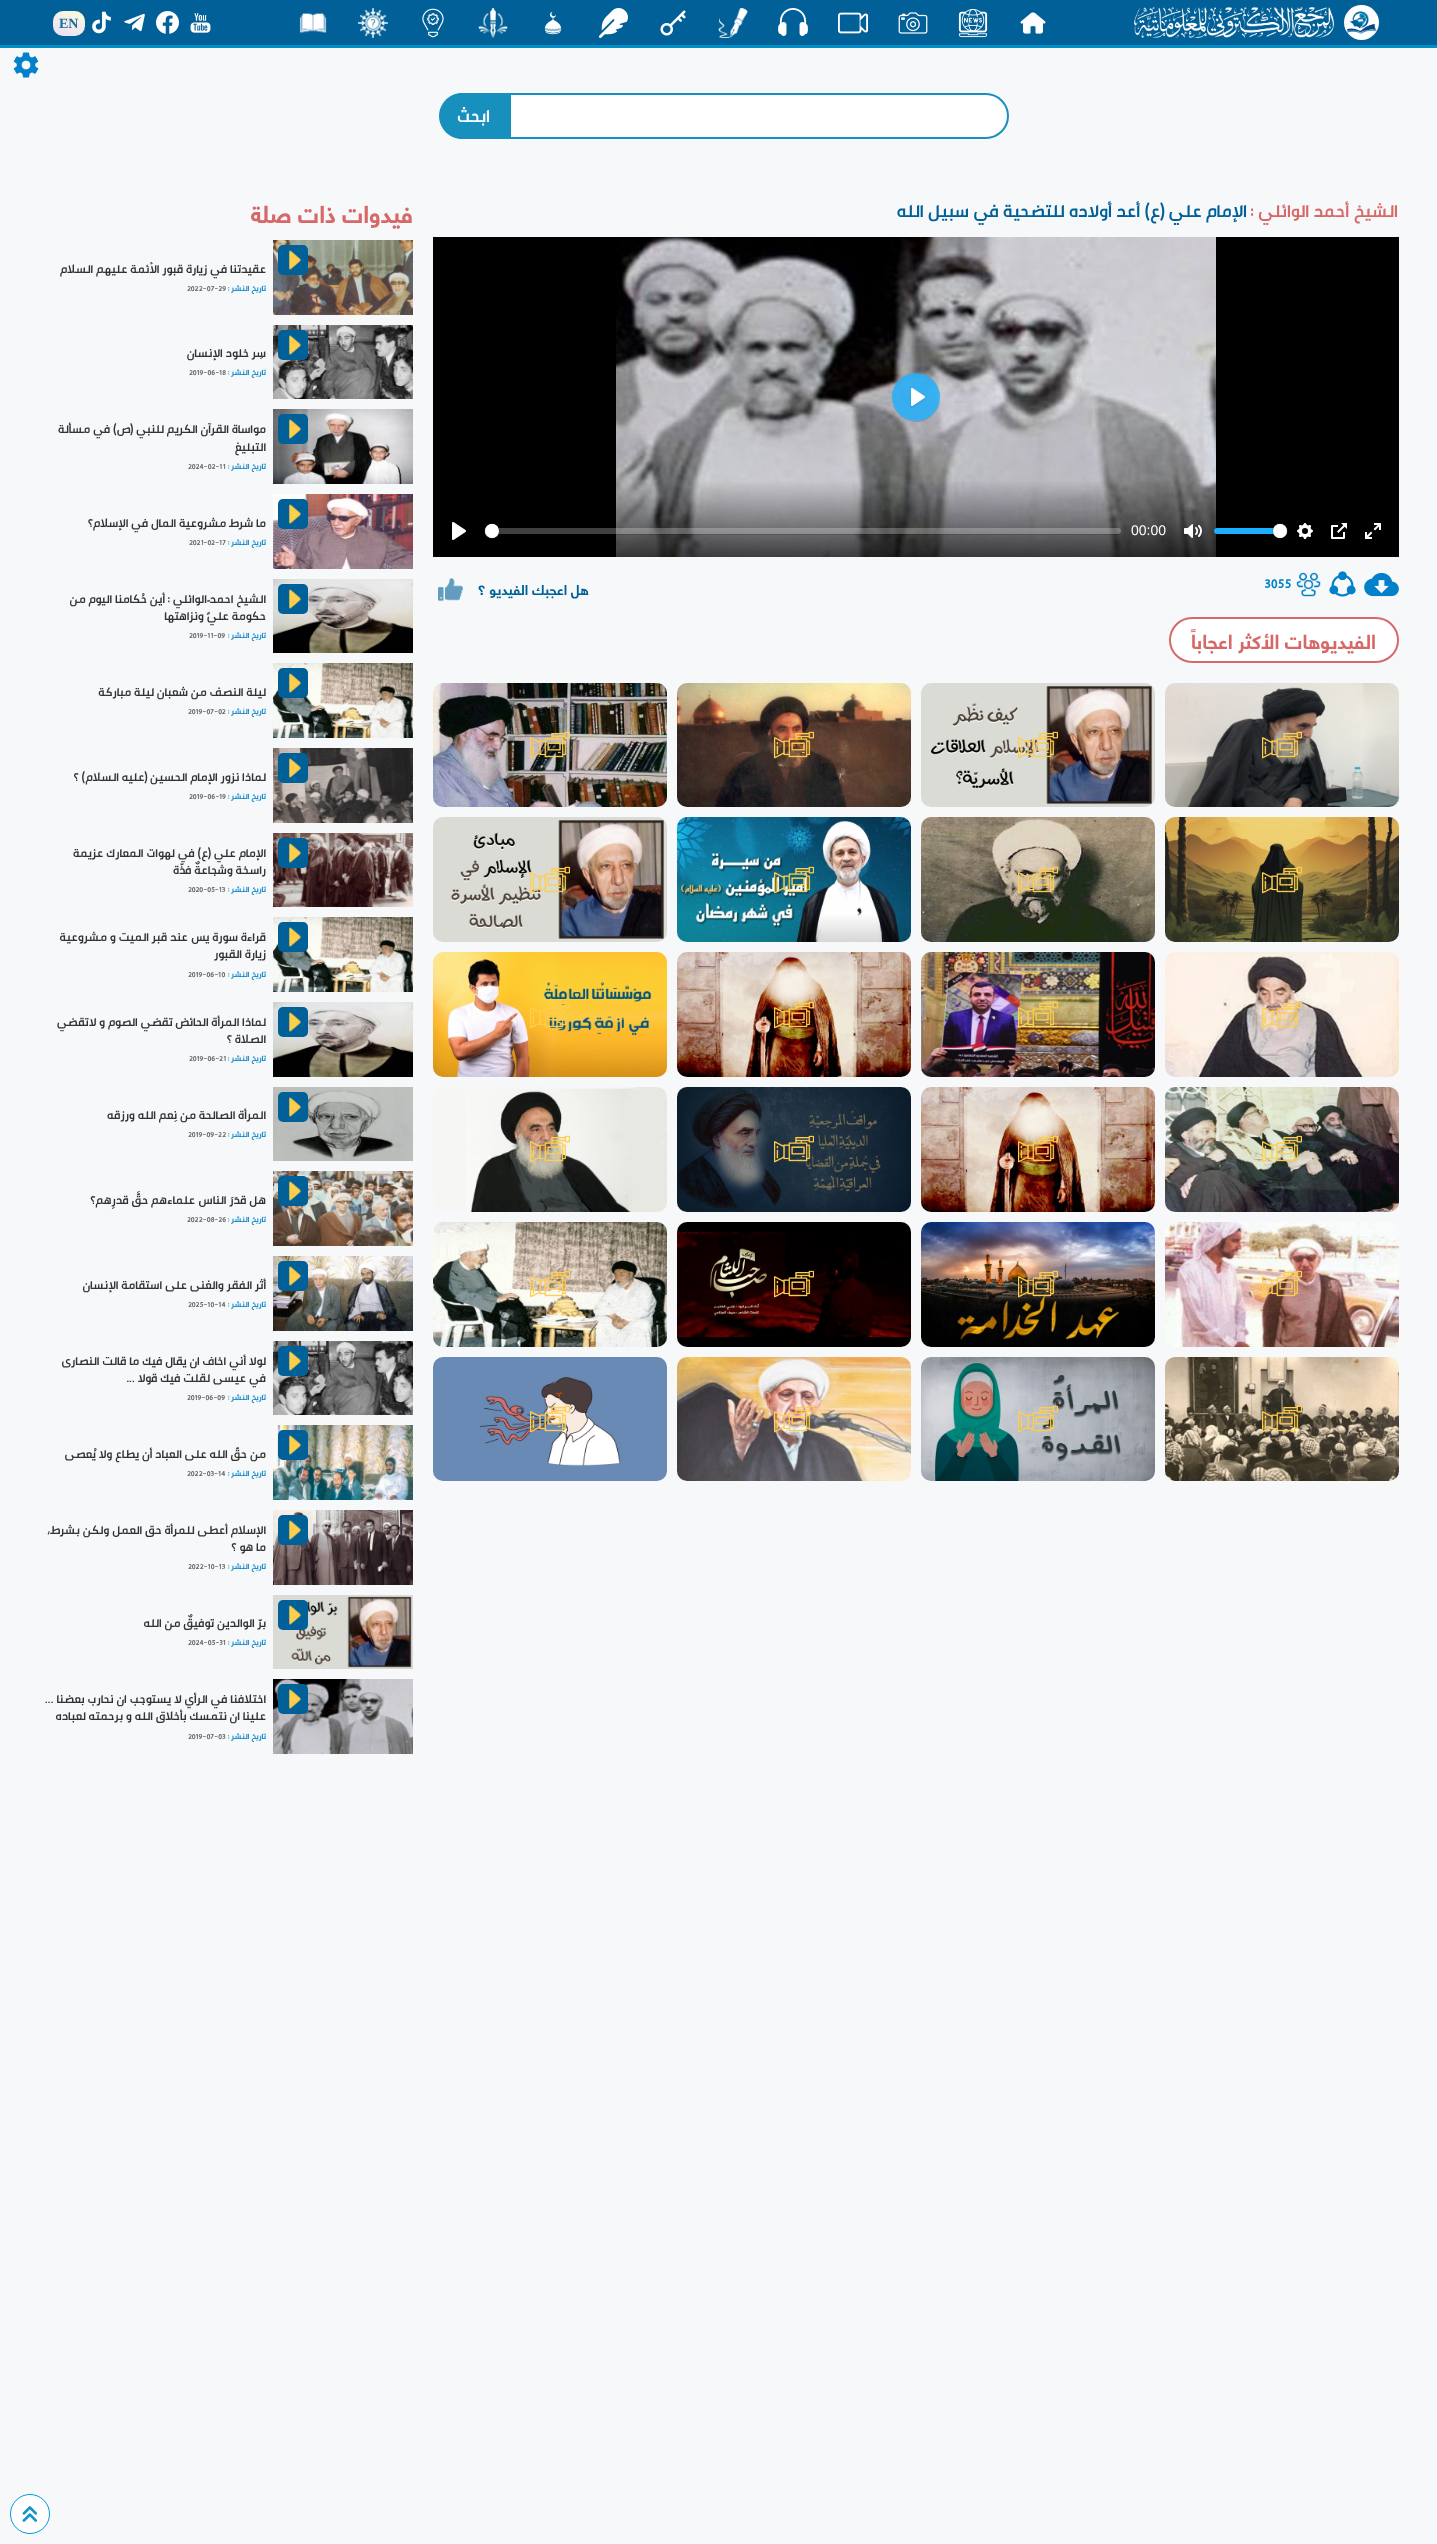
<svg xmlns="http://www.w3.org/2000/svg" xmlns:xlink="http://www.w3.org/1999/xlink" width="1437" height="2544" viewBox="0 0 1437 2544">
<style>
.cls-1{font:bold 14px Liberation Serif;fill:#186e9f}
.cls-2{font:bold 18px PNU;direction:rtl;fill:#ffffff}
.cls-3{font:bold 18px PNU;direction:rtl;fill:#d76868}
.cls-4{font:bold 18px PNU;direction:rtl;fill:#006097}
.cls-5{font:14px Liberation Sans;fill:#ffffff}
.cls-6{font:bold 14px PNU;fill:#0280c9}
.cls-7{font:bold 14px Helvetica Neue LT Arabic;direction:rtl;fill:#006097}
.cls-8{font:bold 20px Helvetica Neue LT Arabic;direction:rtl;fill:#d76868}
.cls-9{font:bold 24px Helvetica Neue LT Arabic;direction:rtl;fill:#d76868}
.cls-10{font:bold 12px PNU;direction:rtl;fill:#333333}
.cls-11{font:bold 8px PNU;direction:rtl;fill:#0280c9}
.cls-12{font:bold 8px PNU;fill:#6c6c6c}
</style>
<defs>
<linearGradient id="g1" gradientUnits="userSpaceOnUse" x1="63" y1="40" x2="75" y2="7.3"><stop offset="0" stop-color="#e9defa"/><stop offset="1" stop-color="#fbfcdb"/></linearGradient>
<clipPath id="clip1"><path d="M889 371H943V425H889ZM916 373C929.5 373 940 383.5 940 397C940 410.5 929.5 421 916 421C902.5 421 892 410.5 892 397C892 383.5 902.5 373 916 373Z" clip-rule="evenodd"/></clipPath>
<linearGradient id="g2" gradientUnits="userSpaceOnUse" x1="916" y1="480" x2="916" y2="557"><stop offset="0" stop-color="#000000" stop-opacity="0"/><stop offset="1" stop-color="#000000" stop-opacity="0.7"/></linearGradient>
<clipPath id="clip2"><path d="M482 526H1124V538H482ZM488 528H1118C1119.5 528 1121 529.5 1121 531C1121 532.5 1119.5 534 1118 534H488C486.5 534 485 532.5 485 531C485 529.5 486.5 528 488 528Z" clip-rule="evenodd"/></clipPath>
</defs>
<rect width="100%" height="100%" fill="#f6f8f9"/>
<rect fill="#006097" x="0" y="0" width="1437" height="45"/>
<rect fill="#008ec5" x="0" y="45" width="1437" height="3"/>
<circle fill="#ffffff" cx="1361.5" cy="22.5" r="17.5"/>
<image xlink:href="image0.png" x="1346" y="11" width="31" height="23"/>
<image xlink:href="image1.png" x="1134" y="7" width="200" height="31"/>
<image xlink:href="image2.png" x="1020" y="12" width="26" height="22"/>
<image xlink:href="image3.png" x="958" y="9" width="30" height="29"/>
<image xlink:href="image4.png" x="898" y="12" width="30" height="22"/>
<image xlink:href="image5.png" x="838" y="12" width="30" height="22"/>
<image xlink:href="image6.png" x="778" y="8" width="30" height="28"/>
<image xlink:href="image7.png" x="718" y="8" width="30" height="30"/>
<image xlink:href="image8.png" x="660" y="10" width="26" height="26"/>
<image xlink:href="image9.png" x="598" y="8" width="30" height="30"/>
<image xlink:href="image10.png" x="544" y="11" width="18" height="24"/>
<image xlink:href="image11.png" x="478" y="8" width="30" height="30"/>
<image xlink:href="image12.png" x="422" y="8" width="22" height="30"/>
<image xlink:href="image13.png" x="358" y="8" width="30" height="30"/>
<image xlink:href="image14.png" x="299" y="13" width="28" height="20"/>
<image xlink:href="image15.png" x="190" y="13" width="21" height="20"/>
<image xlink:href="image16.png" x="156" y="11" width="23" height="23"/>
<image xlink:href="image17.png" x="124" y="13" width="21" height="19"/>
<image xlink:href="image18.png" x="92" y="11" width="19" height="23"/>
<rect fill="url(#g1)" x="53" y="11" width="32" height="25" rx="10"/>
<image xlink:href="image19.png" x="13" y="52" width="26" height="26"/>
<path fill="#ffffff" stroke="#1890bd" stroke-width="2" d="M510 94H986C998 94 1008 104 1008 116C1008 128 998 138 986 138H510Z"/>
<path fill="#1890bd" d="M462 93H509V139H462C449.5 139 439 128.5 439 116C439 103.5 449.5 93 462 93Z"/>
<rect fill="#000000" x="433" y="237" width="966" height="320"/>
<image xlink:href="image20.png" x="616" y="237" width="600" height="320"/>
<g clip-path="url(#clip1)">
<rect fill="#000000" fill-opacity="0.15" filter="blur(0.5px)" x="892" y="374" width="48" height="48" rx="24"/>
</g>
<circle fill="#1aafff" fill-opacity="0.8" cx="916" cy="397" r="24"/>
<image xlink:href="image21.png" x="910" y="388" width="16" height="20"/>
<rect fill="url(#g2)" x="616" y="482" width="600" height="75"/>
<image xlink:href="image22.png" x="1365" y="523" width="16" height="16"/>
<image xlink:href="image23.png" x="1331" y="523" width="16" height="16"/>
<image xlink:href="image24.png" x="1272" y="523" width="41" height="16"/>
<rect fill="#1aafff" x="1214" y="528" width="73" height="6" rx="3"/>
<circle fill="none" stroke="#2f343d" stroke-opacity="0.2" cx="1280" cy="531" r="7.5"/>
<rect fill="#000000" fill-opacity="0.15" filter="blur(0.5px)" x="1273" y="525" width="14" height="14" rx="7"/>
<circle fill="#ffffff" cx="1280" cy="531" r="7"/>
<image xlink:href="image25.png" x="1184" y="524" width="18" height="14"/>
<image xlink:href="image26.png" x="452" y="522" width="46" height="18"/>
<g clip-path="url(#clip2)">
<rect fill="#000000" fill-opacity="0.15" filter="blur(0.5px)" x="485" y="529" width="636" height="6" rx="3"/>
</g>
<rect fill="#ffffff" fill-opacity="0.25" x="485" y="528" width="636" height="6" rx="3"/>
<circle fill="none" stroke="#2f343d" stroke-opacity="0.2" cx="492" cy="531" r="7.5"/>
<rect fill="#000000" fill-opacity="0.15" filter="blur(0.5px)" x="485" y="525" width="14" height="14" rx="7"/>
<circle fill="#ffffff" cx="492" cy="531" r="7"/>
<image xlink:href="image27.png" x="1364" y="572" width="35" height="25"/>
<image xlink:href="image28.png" x="1329" y="571" width="27" height="26"/>
<image xlink:href="image29.png" x="1296" y="572" width="25" height="25"/>
<image xlink:href="image30.png" x="438" y="578" width="25" height="24"/>
<rect fill="#ffffff" stroke="#d76868" stroke-width="2" x="1170" y="618" width="228" height="44" rx="22"/>
<image xlink:href="image31.png" x="1165" y="683" width="234" height="124"/>
<image xlink:href="image32.png" x="1262" y="731" width="40" height="28"/>
<image xlink:href="image33.png" x="921" y="683" width="234" height="124"/>
<image xlink:href="image34.png" x="1018" y="731" width="40" height="28"/>
<image xlink:href="image35.png" x="677" y="683" width="234" height="124"/>
<image xlink:href="image36.png" x="774" y="731" width="40" height="28"/>
<image xlink:href="image37.png" x="433" y="683" width="234" height="124"/>
<image xlink:href="image38.png" x="530" y="731" width="40" height="28"/>
<image xlink:href="image39.png" x="1165" y="817" width="234" height="125"/>
<image xlink:href="image40.png" x="1262" y="866" width="40" height="28"/>
<image xlink:href="image41.png" x="921" y="817" width="234" height="125"/>
<image xlink:href="image42.png" x="1018" y="866" width="40" height="28"/>
<image xlink:href="image43.png" x="677" y="817" width="234" height="125"/>
<image xlink:href="image44.png" x="774" y="866" width="40" height="28"/>
<image xlink:href="image45.png" x="433" y="817" width="234" height="125"/>
<image xlink:href="image46.png" x="530" y="866" width="40" height="28"/>
<image xlink:href="image47.png" x="1165" y="952" width="234" height="125"/>
<image xlink:href="image48.png" x="1262" y="1001" width="40" height="28"/>
<image xlink:href="image49.png" x="921" y="952" width="234" height="125"/>
<image xlink:href="image50.png" x="1018" y="1001" width="40" height="28"/>
<image xlink:href="image51.png" x="677" y="952" width="234" height="125"/>
<image xlink:href="image52.png" x="774" y="1001" width="40" height="28"/>
<image xlink:href="image53.png" x="433" y="952" width="234" height="125"/>
<image xlink:href="image54.png" x="530" y="1002" width="40" height="27"/>
<image xlink:href="image55.png" x="1165" y="1087" width="234" height="125"/>
<image xlink:href="image56.png" x="1262" y="1135" width="40" height="28"/>
<image xlink:href="image57.png" x="921" y="1087" width="234" height="125"/>
<image xlink:href="image58.png" x="1018" y="1135" width="40" height="28"/>
<image xlink:href="image59.png" x="677" y="1087" width="234" height="125"/>
<image xlink:href="image60.png" x="774" y="1135" width="40" height="28"/>
<image xlink:href="image61.png" x="433" y="1087" width="234" height="125"/>
<image xlink:href="image62.png" x="530" y="1135" width="40" height="28"/>
<image xlink:href="image63.png" x="1165" y="1222" width="234" height="125"/>
<image xlink:href="image64.png" x="1262" y="1270" width="40" height="28"/>
<image xlink:href="image65.png" x="921" y="1222" width="234" height="125"/>
<image xlink:href="image66.png" x="1018" y="1270" width="40" height="28"/>
<image xlink:href="image67.png" x="677" y="1222" width="234" height="125"/>
<image xlink:href="image68.png" x="774" y="1270" width="40" height="28"/>
<image xlink:href="image69.png" x="433" y="1222" width="234" height="125"/>
<image xlink:href="image70.png" x="530" y="1270" width="40" height="28"/>
<image xlink:href="image71.png" x="1165" y="1357" width="234" height="124"/>
<image xlink:href="image72.png" x="1262" y="1405" width="40" height="28"/>
<image xlink:href="image73.png" x="921" y="1357" width="234" height="124"/>
<image xlink:href="image74.png" x="1018" y="1405" width="40" height="28"/>
<image xlink:href="image75.png" x="677" y="1357" width="234" height="124"/>
<image xlink:href="image76.png" x="774" y="1405" width="40" height="28"/>
<image xlink:href="image77.png" x="433" y="1357" width="234" height="124"/>
<image xlink:href="image78.png" x="530" y="1405" width="40" height="28"/>
<image xlink:href="image79.png" x="273" y="240" width="140" height="75"/>
<rect fill="#006097" x="278" y="245" width="30" height="30" rx="5"/>
<image xlink:href="image80.png" x="289" y="250" width="12" height="20"/>
<image xlink:href="image81.png" x="273" y="325" width="140" height="74"/>
<rect fill="#006097" x="278" y="330" width="30" height="30" rx="5"/>
<image xlink:href="image80.png" x="289" y="335" width="12" height="20"/>
<image xlink:href="image82.png" x="273" y="409" width="140" height="75"/>
<rect fill="#006097" x="278" y="414" width="30" height="30" rx="5"/>
<image xlink:href="image80.png" x="289" y="419" width="12" height="20"/>
<image xlink:href="image83.png" x="273" y="494" width="140" height="75"/>
<rect fill="#006097" x="278" y="499" width="30" height="30" rx="5"/>
<image xlink:href="image80.png" x="289" y="504" width="12" height="20"/>
<image xlink:href="image84.png" x="273" y="579" width="140" height="74"/>
<rect fill="#006097" x="278" y="584" width="30" height="30" rx="5"/>
<image xlink:href="image80.png" x="289" y="589" width="12" height="20"/>
<image xlink:href="image85.png" x="273" y="663" width="140" height="75"/>
<rect fill="#006097" x="278" y="668" width="30" height="30" rx="5"/>
<image xlink:href="image80.png" x="289" y="673" width="12" height="20"/>
<image xlink:href="image86.png" x="273" y="748" width="140" height="75"/>
<rect fill="#006097" x="278" y="753" width="30" height="30" rx="5"/>
<image xlink:href="image80.png" x="289" y="758" width="12" height="20"/>
<image xlink:href="image87.png" x="273" y="833" width="140" height="74"/>
<rect fill="#006097" x="278" y="838" width="30" height="30" rx="5"/>
<image xlink:href="image80.png" x="289" y="843" width="12" height="20"/>
<image xlink:href="image85.png" x="273" y="917" width="140" height="75"/>
<rect fill="#006097" x="278" y="922" width="30" height="30" rx="5"/>
<image xlink:href="image80.png" x="289" y="927" width="12" height="20"/>
<image xlink:href="image88.png" x="273" y="1002" width="140" height="75"/>
<rect fill="#006097" x="278" y="1007" width="30" height="30" rx="5"/>
<image xlink:href="image80.png" x="289" y="1012" width="12" height="20"/>
<image xlink:href="image89.png" x="273" y="1087" width="140" height="74"/>
<rect fill="#006097" x="278" y="1092" width="30" height="30" rx="5"/>
<image xlink:href="image80.png" x="289" y="1097" width="12" height="20"/>
<image xlink:href="image90.png" x="273" y="1171" width="140" height="75"/>
<rect fill="#006097" x="278" y="1176" width="30" height="30" rx="5"/>
<image xlink:href="image80.png" x="289" y="1181" width="12" height="20"/>
<image xlink:href="image91.png" x="273" y="1256" width="140" height="75"/>
<rect fill="#006097" x="278" y="1261" width="30" height="30" rx="5"/>
<image xlink:href="image80.png" x="289" y="1266" width="12" height="20"/>
<image xlink:href="image81.png" x="273" y="1341" width="140" height="74"/>
<rect fill="#006097" x="278" y="1346" width="30" height="30" rx="5"/>
<image xlink:href="image80.png" x="289" y="1351" width="12" height="20"/>
<image xlink:href="image92.png" x="273" y="1425" width="140" height="75"/>
<rect fill="#006097" x="278" y="1430" width="30" height="30" rx="5"/>
<image xlink:href="image80.png" x="289" y="1435" width="12" height="20"/>
<image xlink:href="image93.png" x="273" y="1510" width="140" height="75"/>
<rect fill="#006097" x="278" y="1515" width="30" height="30" rx="5"/>
<image xlink:href="image80.png" x="289" y="1520" width="12" height="20"/>
<image xlink:href="image94.png" x="273" y="1595" width="140" height="74"/>
<rect fill="#006097" x="278" y="1600" width="30" height="30" rx="5"/>
<image xlink:href="image80.png" x="289" y="1605" width="12" height="20"/>
<image xlink:href="image95.png" x="273" y="1679" width="140" height="75"/>
<rect fill="#006097" x="278" y="1684" width="30" height="30" rx="5"/>
<image xlink:href="image80.png" x="289" y="1689" width="12" height="20"/>
<circle fill="#ffffff" stroke="#0099dd" cx="30" cy="2514" r="19.5"/>
<image xlink:href="image96.png" x="22" y="2506" width="15" height="16"/>
<text class="cls-1" x="59" y="28">EN</text>
<text class="cls-2" x="490" y="122">ابحث</text>
<text class="cls-3" x="1398" y="217">الشيخ أحمد الوائلي :</text>
<text class="cls-4" x="1247" y="217">الإمام علي (ع) أعد أولاده للتضحية في سبيل الله</text>
<text class="cls-5" x="1131" y="535">00:00</text>
<text class="cls-6" x="1264" y="588">3055</text>
<text class="cls-7" x="589" y="595">هل اعجبك الفيديو ؟</text>
<text class="cls-8" x="1376" y="649">الفيديوهات الأكثر اعجاباً</text>
<text class="cls-9" x="413" y="223">فيدوات ذات صلة</text>
<text class="cls-10" x="266" y="273">عقيدتنا في زيارة قبور الأئمة عليهم السلام</text>
<text class="cls-11" x="266" y="291">تاريخ النشر :</text>
<text class="cls-12" x="187" y="291">2022-07-29</text>
<text class="cls-10" x="266" y="357">سِر خلود الإنسان</text>
<text class="cls-11" x="266" y="375">تاريخ النشر :</text>
<text class="cls-12" x="189" y="375">2019-06-18</text>
<text class="cls-10"><tspan x="266" y="433">مواساة القرآن الكريم للنبي (ص) في مسألة</tspan><tspan x="266" y="451">التبليغ</tspan></text>
<text class="cls-11" x="266" y="469">تاريخ النشر :</text>
<text class="cls-12" x="188" y="469">2024-02-11</text>
<text class="cls-10" x="266" y="527">ما شرط مشروعية المال في الإسلام؟</text>
<text class="cls-11" x="266" y="545">تاريخ النشر :</text>
<text class="cls-12" x="189" y="545">2021-02-17</text>
<text class="cls-10" x="266" y="603">الشيخ احمد الوائلي :</text>
<text class="cls-10" x="165" y="603">أين حُكامنا اليوم من</text>
<text class="cls-10" x="266" y="620">حكومة عليٍّ ونزاهتها</text>
<text class="cls-11" x="266" y="638">تاريخ النشر :</text>
<text class="cls-12" x="189" y="638">2019-11-09</text>
<text class="cls-10" x="266" y="696">ليلة النصف من شعبان ليلة مباركة</text>
<text class="cls-11" x="266" y="714">تاريخ النشر :</text>
<text class="cls-12" x="188" y="714">2019-07-02</text>
<text class="cls-10" x="266" y="781">لماذا نزور الإمام الحسين (عليه السلام) ؟</text>
<text class="cls-11" x="266" y="799">تاريخ النشر :</text>
<text class="cls-12" x="189" y="799">2019-06-19</text>
<text class="cls-10"><tspan x="266" y="857">الإمام علي (ع) في لهوات المعارك عزيمة</tspan><tspan x="266" y="874">راسخة وشجاعةٌ فذّة</tspan></text>
<text class="cls-11" x="266" y="892">تاريخ النشر :</text>
<text class="cls-12" x="188" y="892">2020-05-13</text>
<text class="cls-10"><tspan x="266" y="941">قراءة سورة يس عند قبر الميت و مشروعية</tspan><tspan x="266" y="958">زيارة القبور</tspan></text>
<text class="cls-11" x="266" y="977">تاريخ النشر :</text>
<text class="cls-12" x="188" y="977">2019-06-10</text>
<text class="cls-10"><tspan x="266" y="1026">لماذا المرأة الحائض تقضي الصوم و لاتقضي</tspan><tspan x="266" y="1043">الصلاة ؟</tspan></text>
<text class="cls-11" x="266" y="1061">تاريخ النشر :</text>
<text class="cls-12" x="189" y="1061">2019-06-21</text>
<text class="cls-10" x="266" y="1119">المرأة الصالحة</text>
<text class="cls-10" x="196" y="1119">من نِعم الله ورزقه</text>
<text class="cls-11" x="266" y="1137">تاريخ النشر :</text>
<text class="cls-12" x="188" y="1137">2019-09-22</text>
<text class="cls-10" x="266" y="1204">هل قدَرَ الناس علماءهم حقَّ قدرِهم؟</text>
<text class="cls-11" x="266" y="1222">تاريخ النشر :</text>
<text class="cls-12" x="187" y="1222">2022-08-26</text>
<text class="cls-10" x="266" y="1289">أثر الفقر والغنى على استقامة الإنسان</text>
<text class="cls-11" x="266" y="1307">تاريخ النشر :</text>
<text class="cls-12" x="188" y="1307">2025-10-14</text>
<text class="cls-10"><tspan x="266" y="1365">لولا أني اخاف ان يقال فيك ما قالت النصارى</tspan><tspan x="266" y="1382">في عيسى لقلت فيك قولا ...</tspan></text>
<text class="cls-11" x="266" y="1400">تاريخ النشر :</text>
<text class="cls-12" x="187" y="1400">2019-06-09</text>
<text class="cls-10" x="266" y="1458">من حقّ الله على العباد أن يطاع ولا يُعصى</text>
<text class="cls-11" x="266" y="1476">تاريخ النشر :</text>
<text class="cls-12" x="187" y="1476">2022-03-14</text>
<text class="cls-10"><tspan x="266" y="1534">الإسلام أعطى للمرأة حق العمل ولكن بشرط،</tspan><tspan x="266" y="1551">ما هو ؟</tspan></text>
<text class="cls-11" x="266" y="1569">تاريخ النشر :</text>
<text class="cls-12" x="188" y="1569">2022-10-13</text>
<text class="cls-10" x="266" y="1627">برّ الوالدين توفيقٌ من الله</text>
<text class="cls-11" x="266" y="1645">تاريخ النشر :</text>
<text class="cls-12" x="188" y="1645">2024-05-31</text>
<text class="cls-10"><tspan x="266" y="1703">اختلافنا في الرأي لا يستوجب ان نحارب بعضنا ...</tspan><tspan x="266" y="1720">علينا ان نتمسك بأخلاق الله و برحمته لعباده</tspan></text>
<text class="cls-11" x="266" y="1739">تاريخ النشر :</text>
<text class="cls-12" x="188" y="1739">2019-07-03</text>
</svg>
